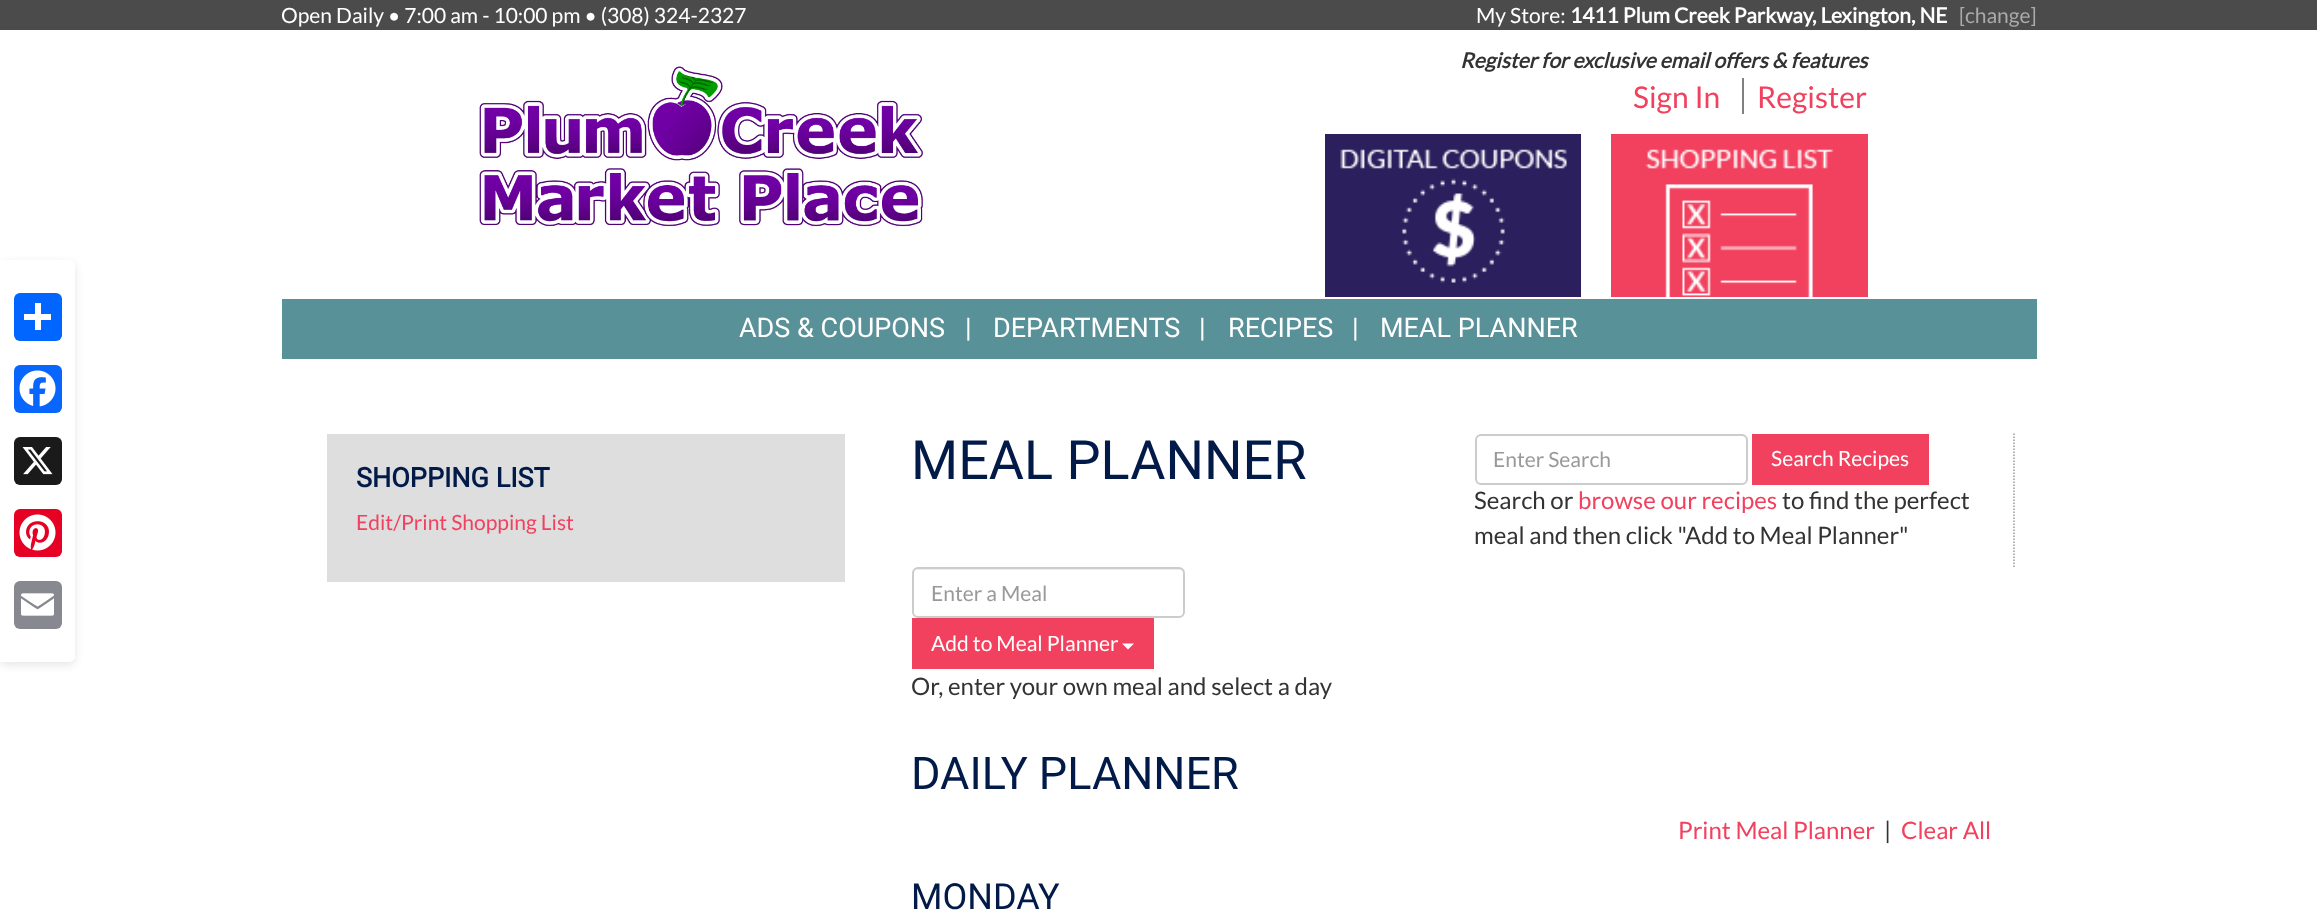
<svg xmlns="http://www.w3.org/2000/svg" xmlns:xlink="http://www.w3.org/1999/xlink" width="2317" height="919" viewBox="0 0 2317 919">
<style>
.cls-1{font:21px Lato;fill:#ffffff}
.cls-2{font:bold 21px Lato;fill:#ffffff}
.cls-3{font:21px Lato;fill:#aaaaaa}
.cls-4{font:italic bold 21px Lato;fill:#333333}
.cls-5{font:30px Lato;fill:#f2415e}
.cls-6{font:27px Roboto;fill:#ffffff}
.cls-7{font:bold 27px Roboto;fill:#021a48}
.cls-8{font:21px Lato;fill:#f2415e}
.cls-9{font:54px Roboto;fill:#021a48}
.cls-10{font:21px Lato;fill:#999999}
.cls-11{font:24px Lato;fill:#333333}
.cls-12{font:24px Lato;fill:#f2415e}
.cls-13{font:45px Roboto;fill:#021a48}
.cls-14{font:36px Roboto;fill:#021a48}
</style>
<rect width="100%" height="100%" fill="#ffffff"/>
<rect fill="#4b4b4b" x="0" y="0" width="2317" height="30"/>
<rect fill="#000000" fill-opacity="0.1" filter="blur(4px)" x="0" y="263" width="75" height="402" rx="6"/>
<path fill="#ffffff" d="M0 260H69C72.5 260 75 262.5 75 266V656C75 659.5 72.5 662 69 662H0Z"/>
<rect fill="#0166ff" x="14" y="293" width="48" height="48" rx="6"/>
<rect fill="#ffffff" x="35" y="303" width="6" height="27"/>
<rect fill="#ffffff" x="24" y="314" width="27" height="6"/>
<rect fill="#0866ff" x="14" y="365" width="48" height="48" rx="6"/>
<image xlink:href="image0.png" x="19" y="370" width="37" height="37"/>
<rect fill="#1a1a1a" x="14" y="437" width="48" height="48" rx="6"/>
<image xlink:href="image1.png" x="22" y="447" width="31" height="28"/>
<rect fill="#e60023" x="14" y="509" width="48" height="48" rx="6"/>
<image xlink:href="image2.png" x="19" y="514" width="37" height="37"/>
<rect fill="#888990" x="14" y="581" width="48" height="48" rx="6"/>
<image xlink:href="image3.png" x="21" y="593" width="33" height="23"/>
<image xlink:href="image4.png" x="479" y="66" width="444" height="161"/>
<rect fill="#808080" x="1742" y="78" width="2" height="36"/>
<rect fill="#2b205d" x="1325" y="134" width="256" height="163"/>
<image xlink:href="image5.png" x="1340" y="149" width="227" height="134"/>
<rect fill="#f2415e" x="1611" y="134" width="257" height="163"/>
<image xlink:href="image6.png" x="1645" y="149" width="189" height="148"/>
<rect fill="#599198" x="282" y="299" width="1755" height="60"/>
<rect fill="#dedede" x="327" y="434" width="518" height="148"/>
<path fill="none" stroke="#999999" stroke-width="1.5" stroke-dasharray="1.5 1.5" d="M2014 433.5V567"/>
<path fill="#ececec" d="M1480 436H1742C1744 436 1746 439 1746 441C1746 438 1744 435 1741 435H1481C1478 435 1476 438 1476 441C1476 439 1478 436 1480 436Z"/>
<rect fill="none" stroke="#cccccc" stroke-width="2" x="1476" y="435" width="271" height="49" rx="5"/>
<rect fill="#f2415e" x="1752" y="434" width="177" height="51"/>
<path fill="#ececec" d="M918 570H1179C1181 570 1184 572 1184 574C1184 571 1182 569 1179 569H919C916 569 914 571 914 574C914 572 916 570 918 570Z"/>
<rect fill="none" stroke="#cccccc" stroke-width="2" x="913" y="568" width="271" height="49" rx="5"/>
<rect fill="#f2415e" x="912" y="618" width="242" height="51"/>
<path fill="#ffffff" d="M1122 643.5H1134L1128 649.5Z"/>
<text class="cls-1" x="281" y="23">Open Daily • 7:00 am - 10:00 pm • (308) 324-2327</text>
<text class="cls-1" x="1476" y="23">My Store:</text>
<text class="cls-2" x="1570" y="23">1411 Plum Creek Parkway, Lexington, NE</text>
<text class="cls-3" x="1959" y="23">[change]</text>
<text class="cls-4" x="1460" y="68">Register for exclusive email offers &amp; features</text>
<text class="cls-5" x="1633" y="108">Sign In</text>
<text class="cls-5" x="1757" y="108">Register</text>
<text class="cls-6" x="739" y="337">ADS &amp; COUPONS</text>
<text class="cls-6" x="965" y="337">|</text>
<text class="cls-6" x="993" y="337">DEPARTMENTS</text>
<text class="cls-6" x="1199" y="337">|</text>
<text class="cls-6" x="1228" y="337">RECIPES</text>
<text class="cls-6" x="1352" y="337">|</text>
<text class="cls-6" x="1380" y="337">MEAL PLANNER</text>
<text class="cls-7" x="356" y="487">SHOPPING LIST</text>
<text class="cls-8" x="356" y="530">Edit/Print Shopping List</text>
<text class="cls-9" x="911" y="479">MEAL PLANNER</text>
<text class="cls-10" x="1493" y="467">Enter Search</text>
<text class="cls-1" x="1771" y="466">Search Recipes</text>
<text class="cls-11" x="1474" y="509">Search or</text>
<text class="cls-12" x="1578" y="509">browse our recipes</text>
<text class="cls-11" x="1782" y="509">to find the perfect</text>
<text class="cls-11" x="1474" y="544">meal and then click "Add to Meal Planner"</text>
<text class="cls-10" x="931" y="601">Enter a Meal</text>
<text class="cls-1" x="931" y="651">Add to Meal Planner</text>
<text class="cls-11" x="911" y="695">Or, enter your own meal and select a day</text>
<text class="cls-13" x="911" y="789">DAILY PLANNER</text>
<text class="cls-12" x="1678" y="839">Print Meal Planner</text>
<text class="cls-11" x="1884" y="839">|</text>
<text class="cls-12" x="1901" y="839">Clear All</text>
<text class="cls-14" x="911" y="909">MONDAY</text>
</svg>
